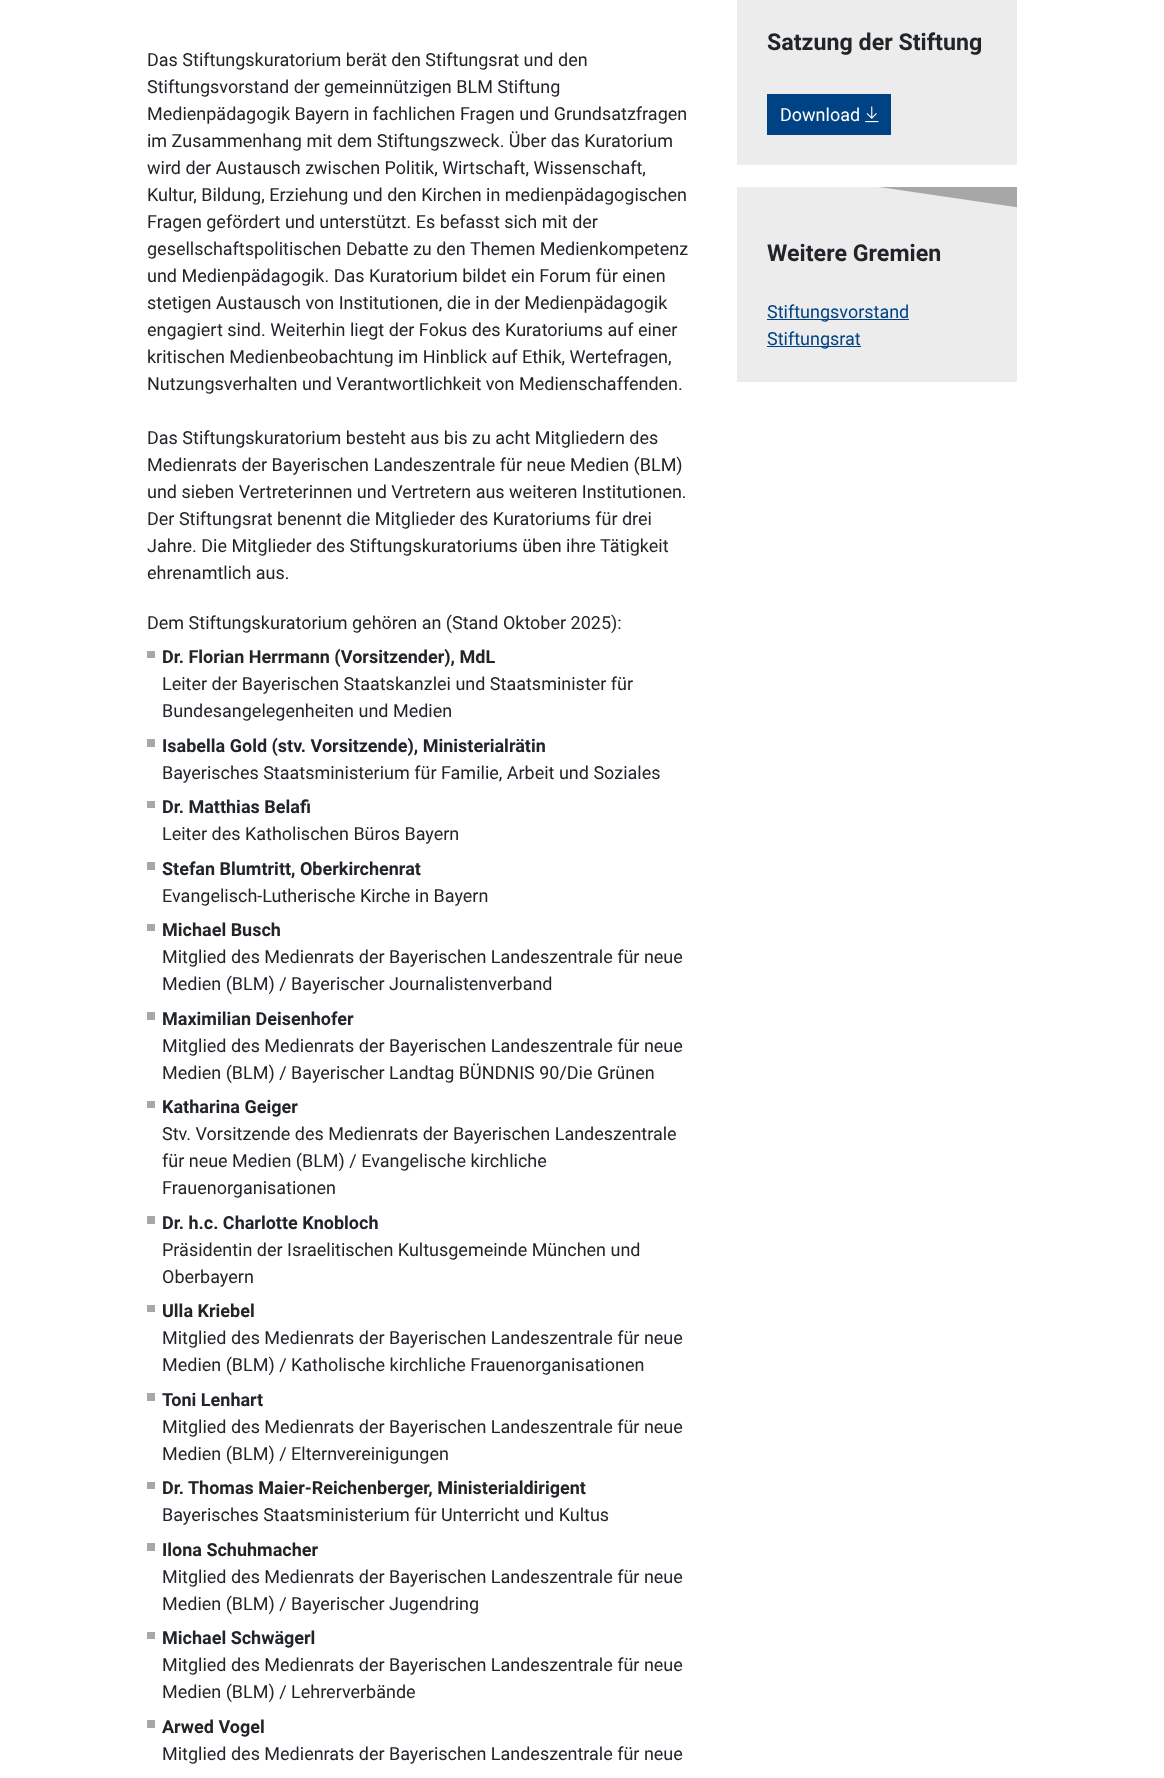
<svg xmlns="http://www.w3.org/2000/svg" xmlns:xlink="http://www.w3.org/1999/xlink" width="1164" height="1778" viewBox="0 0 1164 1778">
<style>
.cls-1{font:18px Roboto;fill:#212529}
.cls-2{font:bold 18px Roboto;fill:#212529}
.cls-3{font:bold 23.25px Roboto;fill:#212529}
.cls-4{font:18px Roboto;fill:#ffffff}
.cls-5{font:18px Roboto;fill:#004384}
</style>
<defs>
<clipPath id="clip1"><rect x="737" y="187" width="280" height="195"/></clipPath>
</defs>
<rect width="100%" height="100%" fill="#ffffff"/>
<rect fill="#a8a7a7" x="147" y="651" width="8" height="7"/>
<rect fill="#a8a7a7" x="147" y="739" width="8" height="8"/>
<rect fill="#a8a7a7" x="147" y="801" width="8" height="7"/>
<rect fill="#a8a7a7" x="147" y="862" width="8" height="8"/>
<rect fill="#a8a7a7" x="147" y="924" width="8" height="7"/>
<rect fill="#a8a7a7" x="147" y="1012" width="8" height="8"/>
<rect fill="#a8a7a7" x="147" y="1101" width="8" height="7"/>
<rect fill="#a8a7a7" x="147" y="1216" width="8" height="8"/>
<rect fill="#a8a7a7" x="147" y="1305" width="8" height="7"/>
<rect fill="#a8a7a7" x="147" y="1393" width="8" height="8"/>
<rect fill="#a8a7a7" x="147" y="1482" width="8" height="7"/>
<rect fill="#a8a7a7" x="147" y="1543" width="8" height="8"/>
<rect fill="#a8a7a7" x="147" y="1632" width="8" height="7"/>
<rect fill="#a8a7a7" x="147" y="1720" width="8" height="8"/>
<rect fill="#ececec" x="737" y="0" width="280" height="165"/>
<rect fill="#004384" x="767" y="94" width="124" height="41"/>
<image xlink:href="image0.png" x="865" y="106" width="14" height="17"/>
<rect fill="#ececec" x="737" y="187" width="280" height="195"/>
<g clip-path="url(#clip1)">
<path fill="#a8a7a7" d="M1022 208L1018 170L879 187Z"/>
</g>
<rect fill="#004384" x="767" y="319" width="142" height="1"/>
<rect fill="#004384" x="767" y="346" width="94" height="1"/>
<text class="cls-1"><tspan x="147" y="66">Das Stiftungskuratorium berät den Stiftungsrat und den</tspan><tspan x="147" y="93">Stiftungsvorstand der gemeinnützigen BLM Stiftung</tspan><tspan x="147" y="120">Medienpädagogik Bayern in fachlichen Fragen und Grundsatzfragen</tspan><tspan x="147" y="147">im Zusammenhang mit dem Stiftungszweck. Über das Kuratorium</tspan><tspan x="147" y="174">wird der Austausch zwischen Politik, Wirtschaft, Wissenschaft,</tspan><tspan x="147" y="201">Kultur, Bildung, Erziehung und den Kirchen in medienpädagogischen</tspan><tspan x="147" y="228">Fragen gefördert und unterstützt. Es befasst sich mit der</tspan><tspan x="147" y="255">gesellschaftspolitischen Debatte zu den Themen Medienkompetenz</tspan><tspan x="147" y="282">und Medienpädagogik. Das Kuratorium bildet ein Forum für einen</tspan><tspan x="147" y="309">stetigen Austausch von Institutionen, die in der Medienpädagogik</tspan><tspan x="147" y="336">engagiert sind. Weiterhin liegt der Fokus des Kuratoriums auf einer</tspan><tspan x="147" y="363">kritischen Medienbeobachtung im Hinblick auf Ethik, Wertefragen,</tspan><tspan x="147" y="390">Nutzungsverhalten und Verantwortlichkeit von Medienschaffenden.</tspan></text>
<text class="cls-1"><tspan x="147" y="444">Das Stiftungskuratorium besteht aus bis zu acht Mitgliedern des</tspan><tspan x="147" y="471">Medienrats der Bayerischen Landeszentrale für neue Medien (BLM)</tspan><tspan x="147" y="498">und sieben Vertreterinnen und Vertretern aus weiteren Institutionen.</tspan><tspan x="147" y="525">Der Stiftungsrat benennt die Mitglieder des Kuratoriums für drei</tspan><tspan x="147" y="552">Jahre. Die Mitglieder des Stiftungskuratoriums üben ihre Tätigkeit</tspan><tspan x="147" y="579">ehrenamtlich aus.</tspan></text>
<text class="cls-1" x="147" y="629">Dem Stiftungskuratorium gehören an (Stand Oktober 2025):</text>
<text class="cls-2" x="162" y="663">Dr. Florian Herrmann (Vorsitzender), MdL</text>
<text class="cls-1"><tspan x="162" y="690">Leiter der Bayerischen Staatskanzlei und Staatsminister für</tspan><tspan x="162" y="717">Bundesangelegenheiten und Medien</tspan></text>
<text class="cls-2" x="162" y="752">Isabella Gold (stv. Vorsitzende), Ministerialrätin</text>
<text class="cls-1" x="162" y="779">Bayerisches Staatsministerium für Familie, Arbeit und Soziales</text>
<text class="cls-2" x="162" y="813">Dr. Matthias Belafi</text>
<text class="cls-1" x="162" y="840">Leiter des Katholischen Büros Bayern</text>
<text class="cls-2" x="162" y="875">Stefan Blumtritt, Oberkirchenrat</text>
<text class="cls-1" x="162" y="902">Evangelisch-Lutherische Kirche in Bayern</text>
<text class="cls-2" x="162" y="936">Michael Busch</text>
<text class="cls-1"><tspan x="162" y="963">Mitglied des Medienrats der Bayerischen Landeszentrale für neue</tspan><tspan x="162" y="990">Medien (BLM) / Bayerischer Journalistenverband</tspan></text>
<text class="cls-2" x="162" y="1025">Maximilian Deisenhofer</text>
<text class="cls-1"><tspan x="162" y="1052">Mitglied des Medienrats der Bayerischen Landeszentrale für neue</tspan><tspan x="162" y="1079">Medien (BLM) / Bayerischer Landtag BÜNDNIS 90/Die Grünen</tspan></text>
<text class="cls-2" x="162" y="1113">Katharina Geiger</text>
<text class="cls-1"><tspan x="162" y="1140">Stv. Vorsitzende des Medienrats der Bayerischen Landeszentrale</tspan><tspan x="162" y="1167">für neue Medien (BLM) / Evangelische kirchliche</tspan><tspan x="162" y="1194">Frauenorganisationen</tspan></text>
<text class="cls-2" x="162" y="1229">Dr. h.c. Charlotte Knobloch</text>
<text class="cls-1"><tspan x="162" y="1256">Präsidentin der Israelitischen Kultusgemeinde München und</tspan><tspan x="162" y="1283">Oberbayern</tspan></text>
<text class="cls-2" x="162" y="1317">Ulla Kriebel</text>
<text class="cls-1"><tspan x="162" y="1344">Mitglied des Medienrats der Bayerischen Landeszentrale für neue</tspan><tspan x="162" y="1371">Medien (BLM) / Katholische kirchliche Frauenorganisationen</tspan></text>
<text class="cls-2" x="162" y="1406">Toni Lenhart</text>
<text class="cls-1"><tspan x="162" y="1433">Mitglied des Medienrats der Bayerischen Landeszentrale für neue</tspan><tspan x="162" y="1460">Medien (BLM) / Elternvereinigungen</tspan></text>
<text class="cls-2" x="162" y="1494">Dr. Thomas Maier-Reichenberger, Ministerialdirigent</text>
<text class="cls-1" x="162" y="1521">Bayerisches Staatsministerium für Unterricht und Kultus</text>
<text class="cls-2" x="162" y="1556">Ilona Schuhmacher</text>
<text class="cls-1"><tspan x="162" y="1583">Mitglied des Medienrats der Bayerischen Landeszentrale für neue</tspan><tspan x="162" y="1610">Medien (BLM) / Bayerischer Jugendring</tspan></text>
<text class="cls-2" x="162" y="1644">Michael Schwägerl</text>
<text class="cls-1"><tspan x="162" y="1671">Mitglied des Medienrats der Bayerischen Landeszentrale für neue</tspan><tspan x="162" y="1698">Medien (BLM) / Lehrerverbände</tspan></text>
<text class="cls-2" x="162" y="1733">Arwed Vogel</text>
<text class="cls-1" x="162" y="1760">Mitglied des Medienrats der Bayerischen Landeszentrale für neue</text>
<text class="cls-3" x="767" y="50">Satzung der Stiftung</text>
<text class="cls-4" x="780" y="121">Download</text>
<text class="cls-3" x="767" y="261">Weitere Gremien</text>
<text class="cls-5"><tspan x="767" y="318">Stiftungsvorstand</tspan><tspan x="767" y="345">Stiftungsrat</tspan></text>
</svg>
